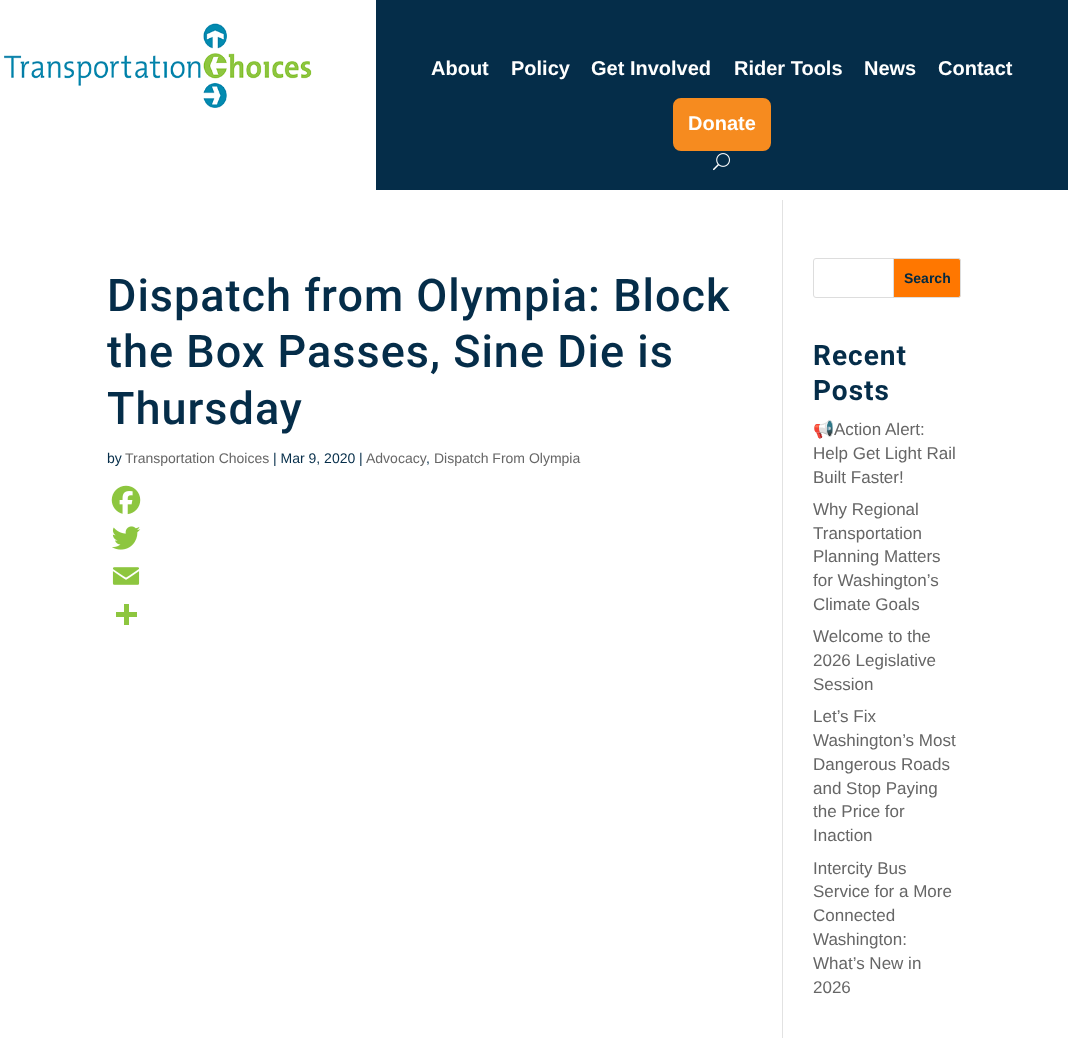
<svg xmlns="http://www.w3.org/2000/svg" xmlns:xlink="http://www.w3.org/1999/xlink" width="1068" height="1038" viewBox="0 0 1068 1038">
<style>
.cls-1{font:bold 20px Liberation Sans;fill:#ffffff}
.cls-2{font:500 45px Roboto;letter-spacing:1px;fill:#052d49}
.cls-3{font:14px Liberation Sans;fill:#052d49}
.cls-4{font:14px Liberation Sans;fill:#666666}
.cls-5{font:bold 14px Liberation Sans;fill:#002942}
.cls-6{font:bold 28px Roboto;letter-spacing:1px;fill:#052d49}
.cls-7{font:17px Noto Color Emoji;fill:#666666}
.cls-8{font:17px Liberation Sans;fill:#666666}
</style>
<rect width="100%" height="100%" fill="#ffffff"/>
<image xlink:href="image0.png" x="4" y="23" width="308" height="85"/>
<rect fill="#052d49" x="376" y="0" width="692" height="190"/>
<rect fill="#f68b1f" stroke="#052d49" stroke-width="2" x="672" y="97" width="100" height="55" rx="9"/>
<image xlink:href="image1.png" x="713" y="153" width="17" height="18"/>
<rect fill="#e2e2e2" x="782" y="200" width="1" height="838"/>
<image xlink:href="image2.png" x="111" y="485" width="30" height="30"/>
<image xlink:href="image3.png" x="112" y="526" width="29" height="24"/>
<image xlink:href="image4.png" x="112" y="567" width="28" height="18"/>
<rect fill="#8dc63f" x="124" y="604" width="5" height="21"/>
<rect fill="#8dc63f" x="116" y="612" width="21" height="5"/>
<rect fill="none" stroke="#dddddd" x="813.5" y="258.5" width="147" height="39" rx="2.5"/>
<path fill="#ff7700" stroke="#dddddd" d="M893.5 258.5H958C959.5 258.5 960.5 259.5 960.5 261V295C960.5 296.5 959.5 297.5 958 297.5H893.5Z"/>
<text class="cls-1" x="431" y="75">About</text>
<text class="cls-1" x="511" y="75">Policy</text>
<text class="cls-1" x="591" y="75">Get Involved</text>
<text class="cls-1" x="734" y="75">Rider Tools</text>
<text class="cls-1" x="864" y="75">News</text>
<text class="cls-1" x="938" y="75">Contact</text>
<text class="cls-1" x="688" y="130">Donate</text>
<text class="cls-2"><tspan x="107" y="311">Dispatch from Olympia: Block</tspan><tspan x="107" y="367">the Box Passes, Sine Die is</tspan><tspan x="107" y="424">Thursday</tspan></text>
<text class="cls-3" x="107" y="463">by</text>
<text class="cls-4" x="125" y="463">Transportation Choices</text>
<text class="cls-3" x="273" y="463">| Mar 9, 2020</text>
<text class="cls-3" x="359" y="463">|</text>
<text class="cls-4" x="366" y="463">Advocacy</text>
<text class="cls-3" x="426" y="463">,</text>
<text class="cls-4" x="434" y="463">Dispatch From Olympia</text>
<text class="cls-5" x="904" y="283">Search</text>
<text class="cls-6"><tspan x="813" y="365">Recent</tspan><tspan x="813" y="400">Posts</tspan></text>
<text class="cls-7" x="813" y="435">📢</text>
<text class="cls-8" x="834" y="435">Action Alert:</text>
<text class="cls-8"><tspan x="813" y="459">Help Get Light Rail</tspan><tspan x="813" y="483">Built Faster!</tspan><tspan x="813" y="515">Why Regional</tspan><tspan x="813" y="539">Transportation</tspan><tspan x="813" y="562">Planning Matters</tspan><tspan x="813" y="586">for Washington’s</tspan><tspan x="813" y="610">Climate Goals</tspan><tspan x="813" y="642">Welcome to the</tspan><tspan x="813" y="666">2026 Legislative</tspan><tspan x="813" y="690">Session</tspan><tspan x="813" y="722">Let’s Fix</tspan><tspan x="813" y="746">Washington’s Most</tspan><tspan x="813" y="770">Dangerous Roads</tspan><tspan x="813" y="794">and Stop Paying</tspan><tspan x="813" y="817">the Price for</tspan><tspan x="813" y="841">Inaction</tspan><tspan x="813" y="874">Intercity Bus</tspan><tspan x="813" y="897">Service for a More</tspan><tspan x="813" y="921">Connected</tspan><tspan x="813" y="945">Washington:</tspan><tspan x="813" y="969">What’s New in</tspan><tspan x="813" y="993">2026</tspan></text>
</svg>
